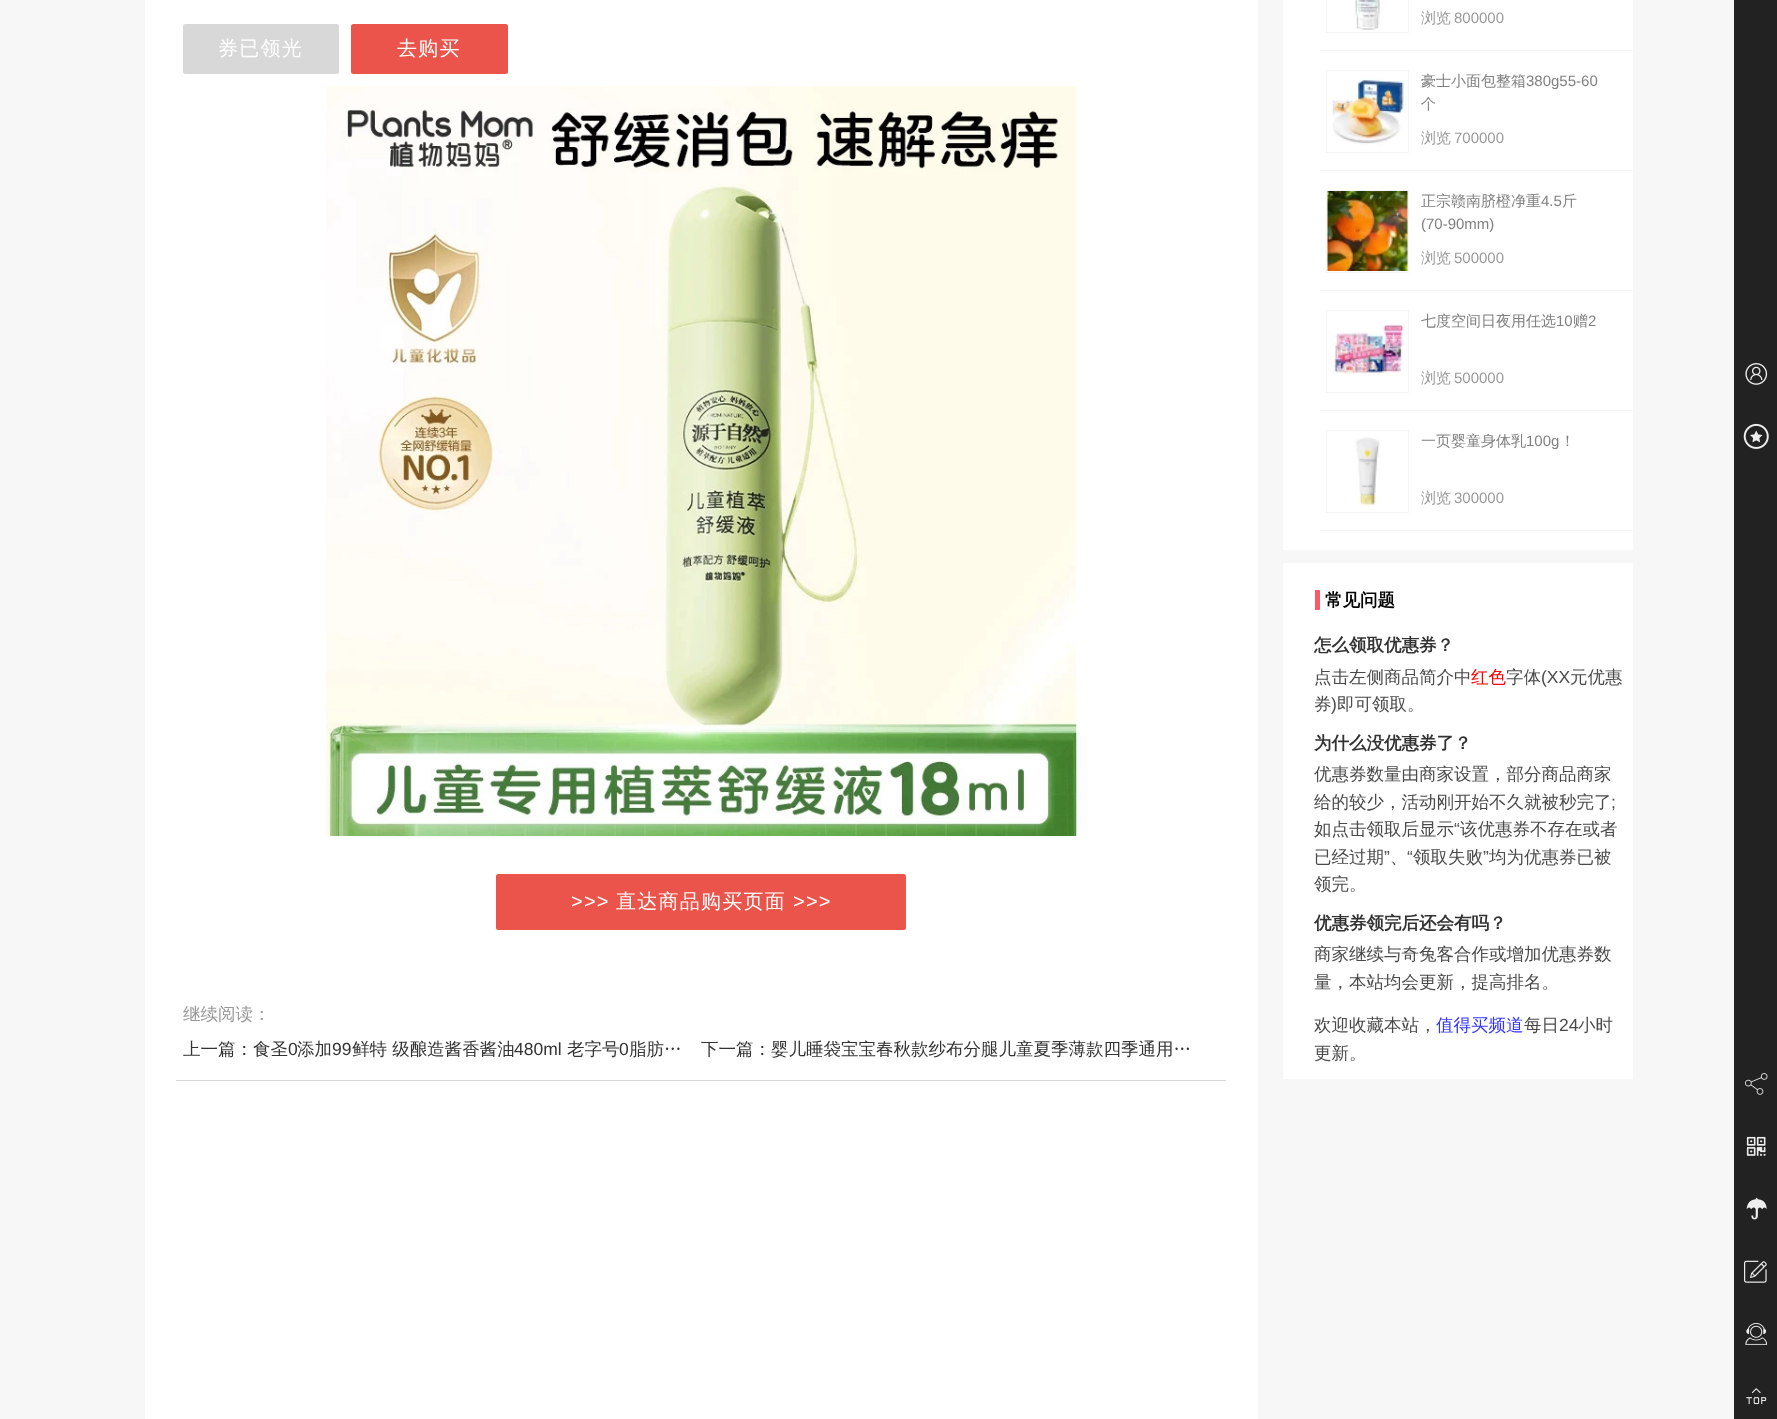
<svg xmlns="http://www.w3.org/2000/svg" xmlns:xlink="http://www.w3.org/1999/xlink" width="1777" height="1419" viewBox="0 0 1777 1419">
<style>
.cls-1{font:500 20px WenQuanYi Zen Hei;letter-spacing:1.25px;fill:#ffffff}
.cls-2{font:20px Liberation Sans;letter-spacing:1.25px;fill:#ffffff}
.cls-3{font:500 17.5px WenQuanYi Zen Hei;fill:#999999}
.cls-4{font:500 17.5px WenQuanYi Zen Hei;fill:#333333}
.cls-5{font:17.5px Liberation Sans;fill:#333333}
.cls-6{font:500 15px WenQuanYi Zen Hei;fill:#999999}
.cls-7{font:15px Liberation Sans;fill:#999999}
.cls-8{font:500 15px WenQuanYi Zen Hei;fill:#808080}
.cls-9{font:15px Liberation Sans;fill:#808080}
.cls-10{font:bold 17.5px WenQuanYi Zen Hei;fill:#000000}
.cls-11{font:bold 17.5px WenQuanYi Zen Hei;fill:#333333}
.cls-12{font:500 17.5px WenQuanYi Zen Hei;fill:#4a4a4a}
.cls-13{font:500 17.5px WenQuanYi Zen Hei;fill:#ff0000}
.cls-14{font:17.5px Liberation Sans;fill:#4a4a4a}
.cls-15{font:500 17.5px WenQuanYi Zen Hei;fill:#3333ff}
</style>
<rect width="100%" height="100%" fill="#f7f7f7"/>
<rect fill="#ffffff" x="145" y="0" width="1113" height="1419"/>
<rect fill="#d8d8d8" x="183" y="24" width="156" height="50" rx="2.5"/>
<rect fill="#ea544a" x="351" y="24" width="157" height="50" rx="2.5"/>
<image xlink:href="image0.png" x="326" y="86" width="751" height="750"/>
<rect fill="#ea544a" x="496" y="874" width="410" height="56" rx="2.5"/>
<rect fill="#d9d9d9" x="176" y="1080" width="1050" height="1"/>
<rect fill="#ffffff" x="1283" y="0" width="350" height="550"/>
<rect fill="#f5f5f5" x="1320" y="50" width="313" height="1"/>
<rect fill="none" stroke="#f5f5f5" x="1326.5" y="-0.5" width="82" height="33"/>
<image xlink:href="image1.png" x="1355" y="0" width="25" height="30"/>
<rect fill="#f5f5f5" x="1320" y="170" width="313" height="1"/>
<rect fill="none" stroke="#f5f5f5" x="1326.5" y="70.5" width="82" height="82"/>
<image xlink:href="image2.png" x="1330" y="78" width="77" height="68"/>
<rect fill="#f5f5f5" x="1320" y="290" width="313" height="1"/>
<rect fill="none" stroke="#f5f5f5" x="1326.5" y="190.5" width="82" height="82"/>
<image xlink:href="image3.png" x="1327" y="191" width="81" height="80"/>
<rect fill="#f5f5f5" x="1320" y="410" width="313" height="1"/>
<rect fill="none" stroke="#f5f5f5" x="1326.5" y="310.5" width="82" height="82"/>
<image xlink:href="image4.png" x="1328" y="321" width="76" height="55"/>
<rect fill="#f5f5f5" x="1320" y="530" width="313" height="1"/>
<rect fill="none" stroke="#f5f5f5" x="1326.5" y="430.5" width="82" height="82"/>
<image xlink:href="image5.png" x="1355" y="437" width="25" height="70"/>
<rect fill="#ffffff" x="1283" y="563" width="350" height="516"/>
<rect fill="#f95c68" x="1315" y="590" width="5" height="20"/>
<rect fill="#222222" x="1734" y="0" width="43" height="1419"/>
<image xlink:href="image6.png" x="1745" y="363" width="23" height="22"/>
<image xlink:href="image7.png" x="1743" y="423" width="26" height="26"/>
<image xlink:href="image8.png" x="1745" y="1073" width="23" height="22"/>
<image xlink:href="image9.png" x="1746" y="1136" width="20" height="20"/>
<image xlink:href="image10.png" x="1746" y="1197" width="21" height="23"/>
<image xlink:href="image11.png" x="1744" y="1260" width="23" height="23"/>
<image xlink:href="image12.png" x="1745" y="1323" width="23" height="22"/>
<image xlink:href="image13.png" x="1746" y="1388" width="21" height="17"/>
<text class="cls-1" x="218" y="55">券已领光</text>
<text class="cls-1" x="397" y="55">去购买</text>
<text class="cls-2" x="571" y="908">&gt;&gt;&gt;</text>
<text class="cls-1" x="616" y="908">直达商品购买页面</text>
<text class="cls-2" x="793" y="908">&gt;&gt;&gt;</text>
<text class="cls-3" x="183" y="1020">继续阅读：</text>
<text class="cls-4" x="183" y="1055">上一篇：食圣</text>
<text class="cls-5" x="288" y="1055">0</text>
<text class="cls-4" x="297" y="1055">添加</text>
<text class="cls-5" x="332" y="1055">99</text>
<text class="cls-4" x="352" y="1055">鲜特 级酿造酱香酱油</text>
<text class="cls-5" x="514" y="1055">480ml</text>
<text class="cls-4" x="567" y="1055">老字号</text>
<text class="cls-5" x="619" y="1055">0</text>
<text class="cls-4" x="629" y="1055">脂肪…</text>
<text class="cls-4" x="701" y="1055">下一篇：婴儿睡袋宝宝春秋款纱布分腿儿童夏季薄款四季通用…</text>
<text class="cls-6" x="1421" y="23">浏览</text>
<text class="cls-7" x="1454" y="23">800000</text>
<text class="cls-8" x="1421" y="86">豪士小面包整箱</text>
<text class="cls-9" x="1526" y="86">380g55-60</text>
<text class="cls-8" x="1421" y="109">个</text>
<text class="cls-6" x="1421" y="143">浏览</text>
<text class="cls-7" x="1454" y="143">700000</text>
<text class="cls-8" x="1421" y="206">正宗赣南脐橙净重</text>
<text class="cls-9" x="1541" y="206">4.5</text>
<text class="cls-8" x="1562" y="206">斤</text>
<text class="cls-9" x="1421" y="229">(70-90mm)</text>
<text class="cls-6" x="1421" y="263">浏览</text>
<text class="cls-7" x="1454" y="263">500000</text>
<text class="cls-8" x="1421" y="326">七度空间日夜用任选</text>
<text class="cls-9" x="1556" y="326">10</text>
<text class="cls-8" x="1573" y="326">赠</text>
<text class="cls-9" x="1588" y="326">2</text>
<text class="cls-6" x="1421" y="383">浏览</text>
<text class="cls-7" x="1454" y="383">500000</text>
<text class="cls-8" x="1421" y="446">一页婴童身体乳</text>
<text class="cls-9" x="1526" y="446">100g</text>
<text class="cls-8" x="1560" y="446">！</text>
<text class="cls-6" x="1421" y="503">浏览</text>
<text class="cls-7" x="1454" y="503">300000</text>
<text class="cls-10" x="1325" y="606">常见问题</text>
<text class="cls-11" x="1314" y="651">怎么领取优惠券？</text>
<text class="cls-12" x="1314" y="683">点击左侧商品简介中</text>
<text class="cls-13" x="1471" y="683">红色</text>
<text class="cls-12" x="1506" y="683">字体</text>
<text class="cls-14" x="1541" y="683">(XX</text>
<text class="cls-12" x="1570" y="683">元优惠</text>
<text class="cls-12" x="1314" y="710">券</text>
<text class="cls-14" x="1331" y="710">)</text>
<text class="cls-12" x="1337" y="710">即可领取。</text>
<text class="cls-11" x="1314" y="749">为什么没优惠券了？</text>
<text class="cls-12"><tspan x="1314" y="780">优惠券数量由商家设置，部分商品商家</tspan><tspan x="1314" y="808">给的较少，活动刚开始不久就被秒完了</tspan></text>
<text class="cls-14" x="1611" y="808">;</text>
<text class="cls-12" x="1314" y="835">如点击领取后显示</text>
<text class="cls-14" x="1454" y="835">“</text>
<text class="cls-12" x="1460" y="835">该优惠券不存在或者</text>
<text class="cls-12" x="1314" y="863">已经过期</text>
<text class="cls-14" x="1384" y="863">”</text>
<text class="cls-14" x="1407" y="863">“</text>
<text class="cls-12" x="1413" y="863">领取失败</text>
<text class="cls-14" x="1483" y="863">”</text>
<text class="cls-12" x="1489" y="863">均为优惠券已被</text>
<text class="cls-12" x="1390" y="863">、</text>
<text class="cls-12" x="1314" y="890">领完。</text>
<text class="cls-11" x="1314" y="929">优惠券领完后还会有吗？</text>
<text class="cls-12"><tspan x="1314" y="960">商家继续与奇兔客合作或增加优惠券数</tspan><tspan x="1314" y="988">量，本站均会更新，提高排名。</tspan></text>
<text class="cls-12" x="1314" y="1031">欢迎收藏本站，</text>
<text class="cls-15" x="1436" y="1031">值得买频道</text>
<text class="cls-12" x="1524" y="1031">每日</text>
<text class="cls-14" x="1559" y="1031">24</text>
<text class="cls-12" x="1578" y="1031">小时</text>
<text class="cls-12" x="1314" y="1059">更新。</text>
</svg>
